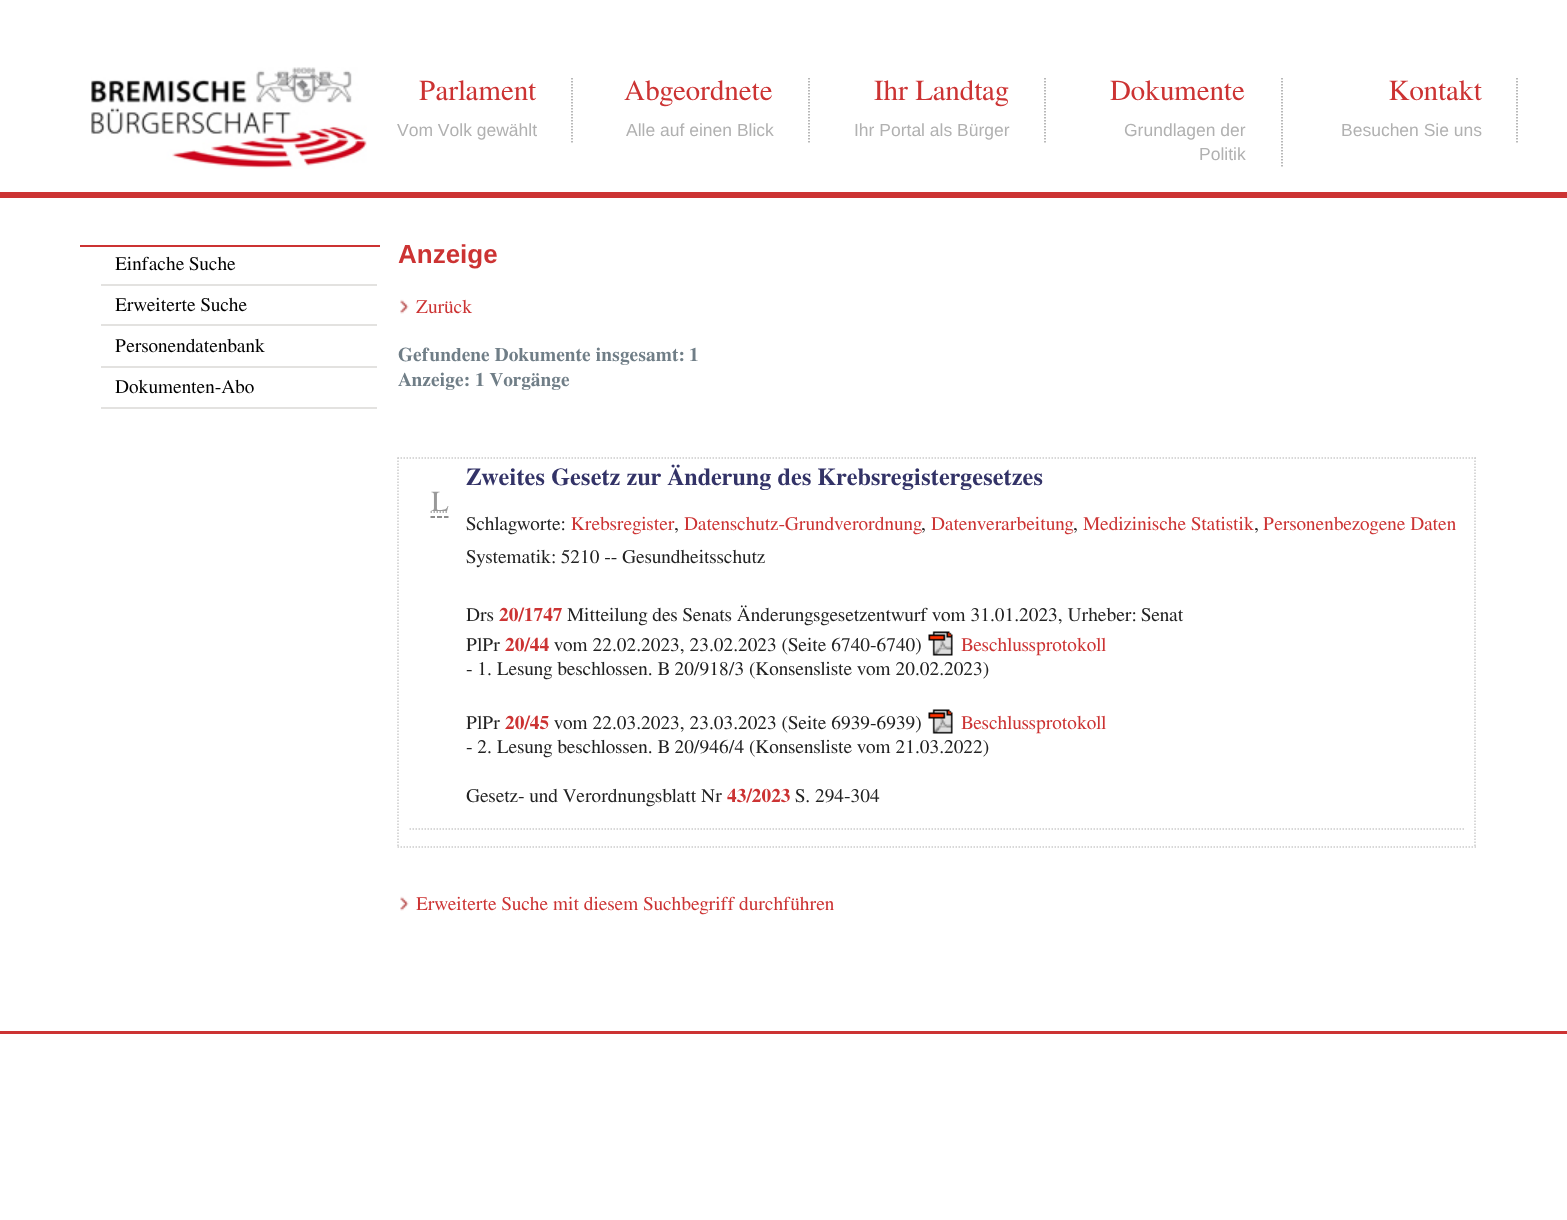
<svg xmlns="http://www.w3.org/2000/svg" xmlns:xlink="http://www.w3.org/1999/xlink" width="1567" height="1220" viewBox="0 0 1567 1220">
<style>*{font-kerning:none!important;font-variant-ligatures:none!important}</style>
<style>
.cls-1{font:29px FreeSerif;fill:#cc3333}
.cls-2{font:17.5px Liberation Sans;fill:#b1b1b1}
.cls-3{font:19.4px FreeSerif;fill:#000000}
.cls-4{font:bold 26px Liberation Sans;fill:#cc3333}
.cls-5{font:19.4px FreeSerif;fill:#cc3333}
.cls-6{font:bold 19.4px FreeSerif;fill:#707e87}
.cls-7{font:bold 24.25px FreeSerif;fill:#333367}
.cls-8{font:29px FreeSerif;fill:#999999}
.cls-9{font:19.4px FreeSerif;fill:#222222}
.cls-10{font:bold 19.4px FreeSerif;fill:#cc3333}
</style>
<rect width="100%" height="100%" fill="#ffffff"/>
<rect fill="#cc3333" x="0" y="192" width="1567" height="6"/>
<image xlink:href="image0.png" x="91" y="67" width="276" height="102"/>
<path fill="none" stroke="#a1a1a1" stroke-width="1.5" stroke-dasharray="1.5 1.5" d="M572 78V142.5"/>
<path fill="none" stroke="#a1a1a1" stroke-width="1.5" stroke-dasharray="1.5 1.5" d="M809 78V142.5"/>
<path fill="none" stroke="#a1a1a1" stroke-width="1.5" stroke-dasharray="1.5 1.5" d="M1045 78V142.5"/>
<path fill="none" stroke="#a1a1a1" stroke-width="1.5" stroke-dasharray="1.5 1.5" d="M1282 78V166.5"/>
<path fill="none" stroke="#a1a1a1" stroke-width="1.5" stroke-dasharray="1.5 1.5" d="M1517 78V142.5"/>
<rect fill="#cc3333" x="0" y="1031" width="1567" height="3"/>
<rect fill="#cc3333" x="80" y="245" width="300" height="2"/>
<rect fill="#e3e2e0" x="101" y="284" width="276" height="2"/>
<rect fill="#e3e2e0" x="101" y="324" width="276" height="2"/>
<rect fill="#e3e2e0" x="101" y="366" width="276" height="2"/>
<rect fill="#e3e2e0" x="101" y="407" width="276" height="2"/>
<image xlink:href="image1.png" x="400" y="299" width="9" height="15"/>
<path fill="none" stroke="#cccccc" stroke-width="1.5" stroke-dasharray="1.5 1.5" d="M397.5 458H1476"/>
<path fill="none" stroke="#cccccc" stroke-width="1.5" stroke-dasharray="1.5 1.5" d="M1475 457.5V847.5"/>
<path fill="none" stroke="#cccccc" stroke-width="1.5" stroke-dasharray="1.5 1.5" d="M397.5 847H1476"/>
<path fill="none" stroke="#cccccc" stroke-width="1.5" stroke-dasharray="1.5 1.5" d="M398 457.5V847.5"/>
<path fill="none" stroke="#666666" stroke-width="1.5" d="M430.5 517H435M437 517H442M444 517H448.5"/>
<path fill="none" stroke="#999999" stroke-width="1.5" stroke-dasharray="1.5 1.5" d="M430.5 512H448.5"/>
<image xlink:href="image2.png" x="928" y="631" width="25" height="25"/>
<image xlink:href="image2.png" x="928" y="709" width="25" height="25"/>
<path fill="none" stroke="#cccccc" stroke-width="1.5" stroke-dasharray="1.5 1.5" d="M409.5 829H1464"/>
<image xlink:href="image1.png" x="400" y="896" width="9" height="15"/>
<text class="cls-1" x="419" y="100">Parlament</text>
<text class="cls-2" x="397" y="136">Vom Volk gewählt</text>
<text class="cls-1" x="624" y="100">Abgeordnete</text>
<text class="cls-2" x="626" y="136">Alle auf einen Blick</text>
<text class="cls-1" x="874" y="100">Ihr Landtag</text>
<text class="cls-2" x="854" y="136">Ihr Portal als Bürger</text>
<text class="cls-1" x="1110" y="100">Dokumente</text>
<text class="cls-2" x="1124" y="136">Grundlagen der</text>
<text class="cls-2" x="1199" y="160">Politik</text>
<text class="cls-1" x="1389" y="100">Kontakt</text>
<text class="cls-2" x="1341" y="136">Besuchen Sie uns</text>
<text class="cls-3" x="115" y="270">Einfache Suche</text>
<text class="cls-3" x="115" y="311">Erweiterte Suche</text>
<text class="cls-3" x="115" y="352">Personendatenbank</text>
<text class="cls-3" x="115" y="393">Dokumenten-Abo</text>
<text class="cls-4" x="398" y="263">Anzeige</text>
<text class="cls-5" x="416" y="313">Zurück</text>
<text class="cls-6" x="398" y="361">Gefundene Dokumente insgesamt:</text>
<text class="cls-6" x="689" y="361">1</text>
<text class="cls-6" x="398" y="386">Anzeige: 1 Vorgänge</text>
<text class="cls-7" x="466" y="485">Zweites Gesetz zur Änderung des Krebsregistergesetzes</text>
<text class="cls-8" x="431" y="511">L</text>
<text class="cls-9" x="466" y="530">Schlagworte:</text>
<text class="cls-5" x="571" y="530">Krebsregister</text>
<text class="cls-9" x="674" y="530">,</text>
<text class="cls-5" x="684" y="530">Datenschutz-Grundverordnung</text>
<text class="cls-9" x="921" y="530">,</text>
<text class="cls-5" x="931" y="530">Datenverarbeitung</text>
<text class="cls-9" x="1073" y="530">,</text>
<text class="cls-5" x="1083" y="530">Medizinische Statistik</text>
<text class="cls-9" x="1254" y="530">,</text>
<text class="cls-5" x="1263" y="530">Personenbezogene Daten</text>
<text class="cls-9" x="466" y="563">Systematik: 5210 -- Gesundheitsschutz</text>
<text class="cls-9" x="466" y="621">Drs</text>
<text class="cls-10" x="499" y="621">20/1747</text>
<text class="cls-9" x="567" y="621">Mitteilung des Senats Änderungsgesetzentwurf</text>
<text class="cls-9" x="932" y="621">vom 31.01.2023, Urheber:</text>
<text class="cls-9" x="1141" y="621">Senat</text>
<text class="cls-9" x="466" y="651">PlPr</text>
<text class="cls-10" x="505" y="651">20/44</text>
<text class="cls-9" x="554" y="651">vom 22.02.2023, 23.02.2023 (Seite 6740-6740)</text>
<text class="cls-5" x="961" y="651">Beschlussprotokoll</text>
<text class="cls-9" x="466" y="675">- 1. Lesung beschlossen. B 20/918/3 (Konsensliste vom 20.02.2023)</text>
<text class="cls-9" x="466" y="729">PlPr</text>
<text class="cls-10" x="505" y="729">20/45</text>
<text class="cls-9" x="554" y="729">vom 22.03.2023, 23.03.2023 (Seite 6939-6939)</text>
<text class="cls-5" x="961" y="729">Beschlussprotokoll</text>
<text class="cls-9" x="466" y="753">- 2. Lesung beschlossen. B 20/946/4 (Konsensliste vom 21.03.2022)</text>
<text class="cls-9" x="466" y="802">Gesetz- und Verordnungsblatt Nr</text>
<text class="cls-10" x="727" y="802">43/2023</text>
<text class="cls-9" x="795" y="802">S. 294-304</text>
<text class="cls-5" x="416" y="910">Erweiterte Suche mit diesem Suchbegriff</text>
<text class="cls-5" x="739" y="910">durchführen</text>
</svg>
